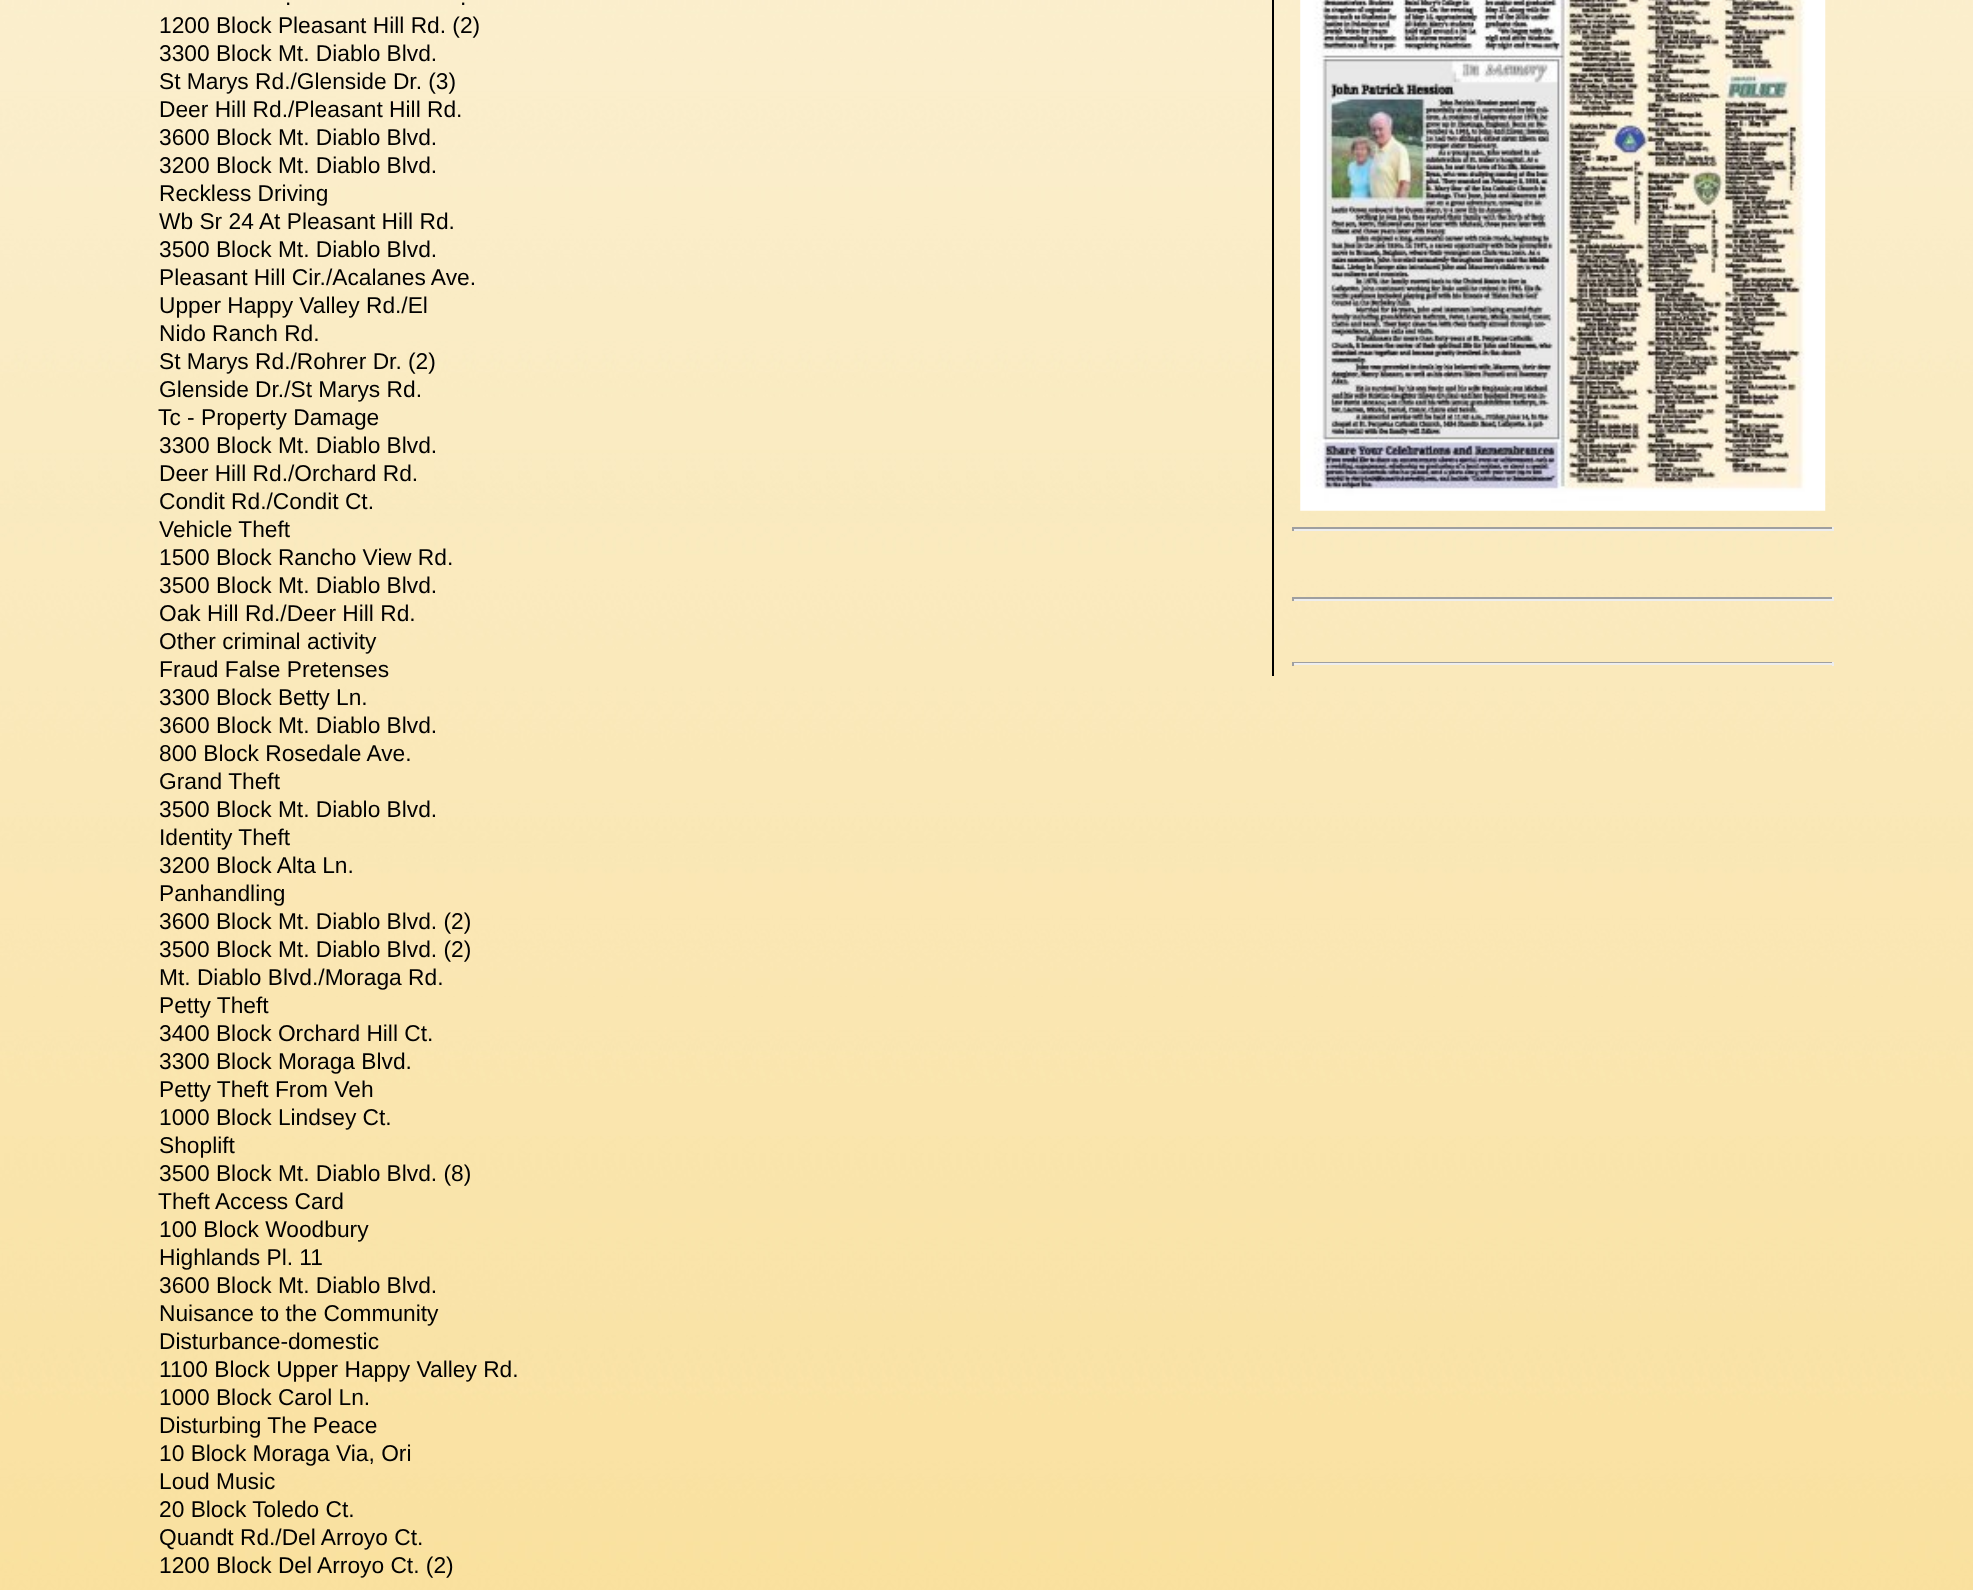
<svg xmlns="http://www.w3.org/2000/svg" xmlns:xlink="http://www.w3.org/1999/xlink" width="1973" height="1590" viewBox="0 0 1973 1590">
<style>
.cls-1{font:22.75px Liberation Sans;fill:#000000}
</style>
<rect width="100%" height="100%" fill="#ffffff"/>
<image xlink:href="image0.png" x="0" y="0" width="1973" height="1590"/>
<rect fill="#000000" x="1272" y="0" width="2" height="676"/>
<image xlink:href="image1.png" x="1300" y="0" width="526" height="511"/>
<rect fill="#9f9f9f" x="1292" y="527" width="542" height="2"/>
<rect fill="#eeeeee" x="1832" y="527" width="2" height="4"/>
<rect fill="#eeeeee" x="1292" y="529" width="542" height="2"/>
<rect fill="#9f9f9f" x="1292" y="527" width="2" height="4"/>
<rect fill="#9f9f9f" x="1292" y="597" width="542" height="2"/>
<rect fill="#eeeeee" x="1832" y="597" width="2" height="4"/>
<rect fill="#eeeeee" x="1292" y="599" width="542" height="2"/>
<rect fill="#9f9f9f" x="1292" y="597" width="2" height="4"/>
<rect fill="#9f9f9f" x="1292" y="662" width="542" height="1"/>
<rect fill="#eeeeee" x="1832" y="662" width="2" height="4"/>
<rect fill="#eeeeee" x="1292" y="663" width="542" height="2"/>
<rect fill="#9f9f9f" x="1292" y="662" width="2" height="4"/>
<text class="cls-1" x="285" y="5">.</text>
<text class="cls-1" x="460" y="5">.</text>
<text class="cls-1"><tspan x="159" y="33">1200 Block Pleasant Hill Rd. (2)</tspan><tspan x="159" y="61">3300 Block Mt. Diablo Blvd.</tspan><tspan x="159" y="89">St Marys Rd./Glenside Dr. (3)</tspan><tspan x="159" y="117">Deer Hill Rd./Pleasant Hill Rd.</tspan><tspan x="159" y="145">3600 Block Mt. Diablo Blvd.</tspan><tspan x="159" y="173">3200 Block Mt. Diablo Blvd.</tspan><tspan x="159" y="201">Reckless Driving</tspan><tspan x="159" y="229">Wb Sr 24 At Pleasant Hill Rd.</tspan><tspan x="159" y="257">3500 Block Mt. Diablo Blvd.</tspan><tspan x="159" y="285">Pleasant Hill Cir./Acalanes Ave.</tspan><tspan x="159" y="313">Upper Happy Valley Rd./El</tspan><tspan x="159" y="341">Nido Ranch Rd.</tspan><tspan x="159" y="369">St Marys Rd./Rohrer Dr. (2)</tspan><tspan x="159" y="397">Glenside Dr./St Marys Rd.</tspan></text>
<text class="cls-1" x="158" y="425">Tc - Property Damage</text>
<text class="cls-1"><tspan x="159" y="453">3300 Block Mt. Diablo Blvd.</tspan><tspan x="159" y="481">Deer Hill Rd./Orchard Rd.</tspan><tspan x="159" y="509">Condit Rd./Condit Ct.</tspan><tspan x="159" y="537">Vehicle Theft</tspan><tspan x="159" y="565">1500 Block Rancho View Rd.</tspan><tspan x="159" y="593">3500 Block Mt. Diablo Blvd.</tspan><tspan x="159" y="621">Oak Hill Rd./Deer Hill Rd.</tspan><tspan x="159" y="649">Other criminal activity</tspan><tspan x="159" y="677">Fraud False Pretenses</tspan><tspan x="159" y="705">3300 Block Betty Ln.</tspan><tspan x="159" y="733">3600 Block Mt. Diablo Blvd.</tspan><tspan x="159" y="761">800 Block Rosedale Ave.</tspan><tspan x="159" y="789">Grand Theft</tspan><tspan x="159" y="817">3500 Block Mt. Diablo Blvd.</tspan><tspan x="159" y="845">Identity Theft</tspan><tspan x="159" y="873">3200 Block Alta Ln.</tspan><tspan x="159" y="901">Panhandling</tspan><tspan x="159" y="929">3600 Block Mt. Diablo Blvd. (2)</tspan><tspan x="159" y="957">3500 Block Mt. Diablo Blvd. (2)</tspan><tspan x="159" y="985">Mt. Diablo Blvd./Moraga Rd.</tspan><tspan x="159" y="1013">Petty Theft</tspan><tspan x="159" y="1041">3400 Block Orchard Hill Ct.</tspan><tspan x="159" y="1069">3300 Block Moraga Blvd.</tspan><tspan x="159" y="1097">Petty Theft From Veh</tspan><tspan x="159" y="1125">1000 Block Lindsey Ct.</tspan><tspan x="159" y="1153">Shoplift</tspan><tspan x="159" y="1181">3500 Block Mt. Diablo Blvd. (8)</tspan></text>
<text class="cls-1" x="158" y="1209">Theft Access Card</text>
<text class="cls-1"><tspan x="159" y="1237">100 Block Woodbury</tspan><tspan x="159" y="1265">Highlands Pl. 11</tspan><tspan x="159" y="1293">3600 Block Mt. Diablo Blvd.</tspan><tspan x="159" y="1321">Nuisance to the Community</tspan><tspan x="159" y="1349">Disturbance-domestic</tspan><tspan x="159" y="1377">1100 Block Upper Happy Valley Rd.</tspan><tspan x="159" y="1405">1000 Block Carol Ln.</tspan><tspan x="159" y="1433">Disturbing The Peace</tspan><tspan x="159" y="1461">10 Block Moraga Via, Ori</tspan><tspan x="159" y="1489">Loud Music</tspan><tspan x="159" y="1517">20 Block Toledo Ct.</tspan><tspan x="159" y="1545">Quandt Rd./Del Arroyo Ct.</tspan><tspan x="159" y="1573">1200 Block Del Arroyo Ct. (2)</tspan></text>
</svg>
